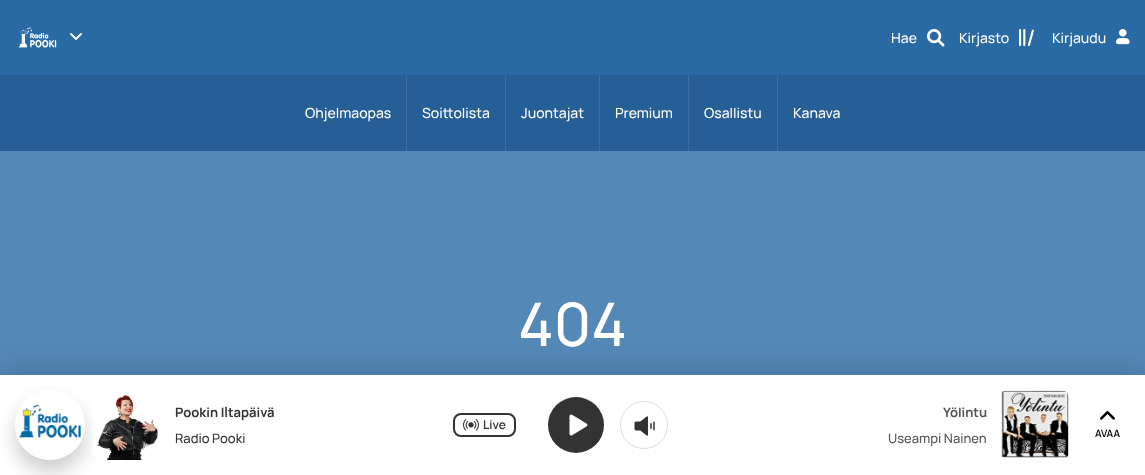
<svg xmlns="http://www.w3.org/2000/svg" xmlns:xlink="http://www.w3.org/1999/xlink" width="1145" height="475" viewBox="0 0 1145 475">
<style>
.cls-1{font:500 14px Manrope;fill:#ffffff}
.cls-2{font:500 60px Manrope;fill:#ffffff}
.cls-3{font:bold 13px Manrope;fill:#333333}
.cls-4{font:500 13px Manrope;fill:#333333}
.cls-5{font:600 12px Manrope;fill:#333333}
.cls-6{font:bold 13px Manrope;fill:#555555}
.cls-7{font:500 13px Manrope;fill:#555555}
.cls-8{font:600 10px Manrope;fill:#000000}
</style>
<defs>
<clipPath id="clip1"><path d="M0 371H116V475H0ZM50 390C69.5 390 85 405.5 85 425C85 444.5 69.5 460 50 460C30.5 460 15 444.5 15 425C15 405.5 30.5 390 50 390Z" clip-rule="evenodd"/></clipPath>
</defs>
<rect width="100%" height="100%" fill="#ffffff"/>
<rect fill="#296aa5" x="0" y="0" width="1145" height="75"/>
<image xlink:href="image0.png" x="18" y="27" width="39" height="21"/>
<image xlink:href="image1.png" x="70" y="33" width="12" height="7"/>
<image xlink:href="image2.png" x="927" y="29" width="18" height="18"/>
<image xlink:href="image3.png" x="1019" y="29" width="15" height="18"/>
<image xlink:href="image4.png" x="1116" y="29" width="14" height="16"/>
<rect fill="#255f95" x="0" y="75" width="1145" height="76"/>
<rect fill="#3b6fa0" x="406" y="75" width="1" height="76"/>
<rect fill="#3b6fa0" x="505" y="75" width="1" height="76"/>
<rect fill="#3b6fa0" x="599" y="75" width="1" height="76"/>
<rect fill="#3b6fa0" x="688" y="75" width="1" height="76"/>
<rect fill="#3b6fa0" x="777" y="75" width="1" height="76"/>
<image xlink:href="image5.png" x="0" y="151" width="1145" height="224"/>
<rect fill="#000000" fill-opacity="0.2" filter="blur(15px)" x="0" y="375" width="1145" height="100"/>
<rect fill="#ffffff" x="0" y="375" width="1145" height="100"/>
<g clip-path="url(#clip1)">
<rect fill="#000000" fill-opacity="0.2" filter="blur(10px)" x="15" y="402" width="70" height="70" rx="35"/>
</g>
<image xlink:href="image6.png" x="19" y="404" width="64" height="51"/>
<image xlink:href="image7.png" x="93" y="395" width="65" height="65"/>
<rect fill="none" stroke="#333333" stroke-width="2" x="454" y="414" width="61" height="22" rx="7"/>
<image xlink:href="image8.png" x="463" y="419" width="16" height="12"/>
<circle fill="#333333" cx="576" cy="425" r="28"/>
<image xlink:href="image9.png" x="569" y="414" width="19" height="22"/>
<circle fill="none" stroke="#dedce0" cx="644" cy="425" r="23.5"/>
<image xlink:href="image10.png" x="634" y="416" width="21" height="20"/>
<image xlink:href="image11.png" x="999" y="390" width="70" height="68"/>
<image xlink:href="image12.png" x="1100" y="411" width="15" height="9"/>
<text class="cls-1" x="891" y="43">Hae</text>
<text class="cls-1" x="959" y="43">Kirjasto</text>
<text class="cls-1" x="1052" y="43">Kirjaudu</text>
<text class="cls-1" x="305" y="118">Ohjelmaopas</text>
<text class="cls-1" x="422" y="118">Soittolista</text>
<text class="cls-1" x="521" y="118">Juontajat</text>
<text class="cls-1" x="615" y="118">Premium</text>
<text class="cls-1" x="704" y="118">Osallistu</text>
<text class="cls-1" x="793" y="118">Kanava</text>
<text class="cls-2" x="518" y="346">404</text>
<text class="cls-3" x="175" y="417">Pookin Iltapäivä</text>
<text class="cls-4" x="175" y="443">Radio Pooki</text>
<text class="cls-5" x="483" y="429">Live</text>
<text class="cls-6" x="943" y="417">Yölintu</text>
<text class="cls-7" x="888" y="443">Useampi Nainen</text>
<text class="cls-8" x="1095" y="437">AVAA</text>
</svg>
